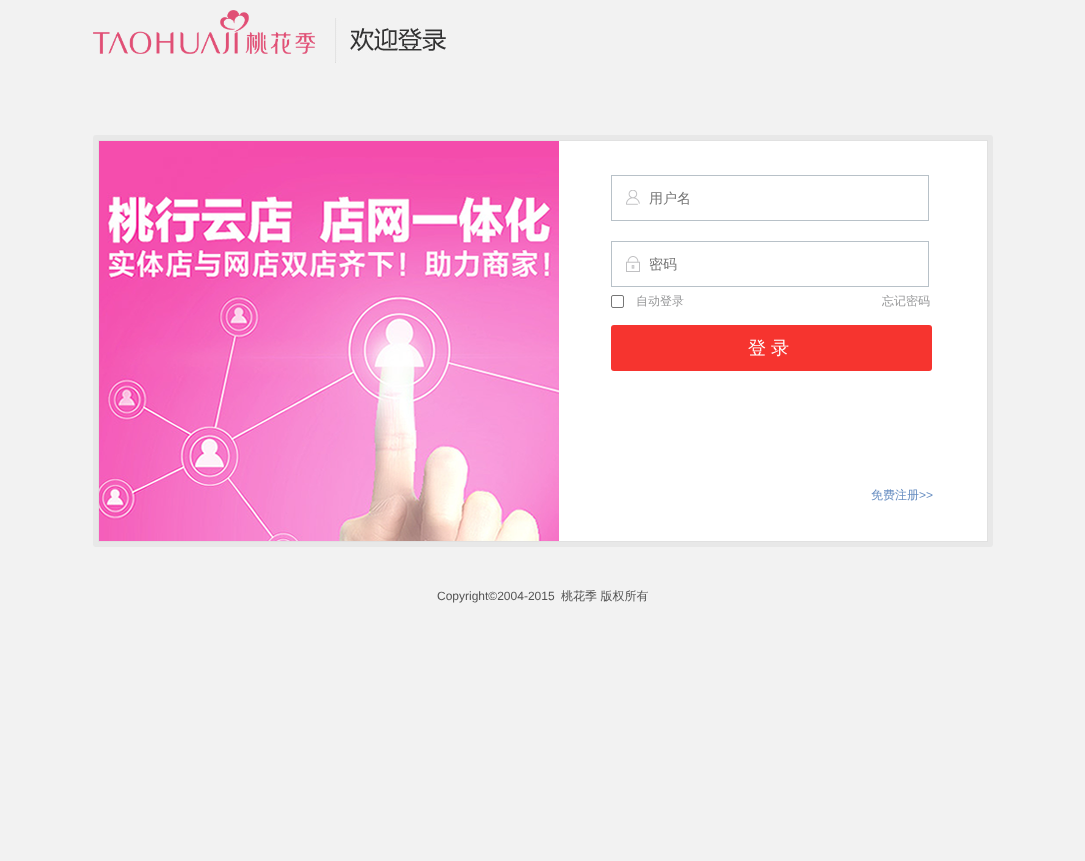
<svg xmlns="http://www.w3.org/2000/svg" xmlns:xlink="http://www.w3.org/1999/xlink" width="1085" height="861" viewBox="0 0 1085 861">
<style>
.cls-1{font:500 14px WenQuanYi Zen Hei;fill:#757575}
.cls-2{font:500 12px WenQuanYi Zen Hei;fill:#98999a}
.cls-3{font:500 18px WenQuanYi Zen Hei;letter-spacing:5px;fill:#ffffff}
.cls-4{font:500 12px WenQuanYi Zen Hei;fill:#698fc2}
.cls-5{font:12px Liberation Sans;fill:#698fc2}
.cls-6{font:12px Liberation Sans;fill:#545454}
.cls-7{font:500 12px WenQuanYi Zen Hei;fill:#545454}
</style>
<rect width="100%" height="100%" fill="#f2f2f2"/>
<image xlink:href="image0.png" x="93" y="10" width="222" height="44"/>
<image xlink:href="image1.png" x="335" y="18" width="111" height="45"/>
<rect fill="none" stroke="#e8e8e8" stroke-width="5" x="95.5" y="137.5" width="895" height="407" rx="0.5"/>
<rect fill="#ffffff" x="559" y="141" width="428" height="400"/>
<rect fill="none" stroke="#e1e1e1" x="98.5" y="140.5" width="889" height="401"/>
<image xlink:href="image2.png" x="99" y="141" width="460" height="400"/>
<rect fill="none" stroke="#b8c1c8" x="611.5" y="175.5" width="317" height="45"/>
<image xlink:href="image3.png" x="626" y="190" width="14" height="15"/>
<rect fill="none" stroke="#b8c1c8" x="611.5" y="241.5" width="317" height="45"/>
<image xlink:href="image4.png" x="626" y="256" width="14" height="16"/>
<rect fill="none" stroke="#767676" x="611.5" y="295.5" width="12" height="12" rx="1.5"/>
<rect fill="#f6342f" x="611" y="325" width="321" height="46" rx="3"/>
<text class="cls-1" x="649" y="203">用户名</text>
<text class="cls-1" x="649" y="269">密码</text>
<text class="cls-2" x="636" y="305">自动登录</text>
<text class="cls-2" x="882" y="305">忘记密码</text>
<text class="cls-3" x="748" y="354">登录</text>
<text class="cls-4" x="871" y="499">免费注册</text>
<text class="cls-5" x="919" y="499">&gt;&gt;</text>
<text class="cls-6" x="437" y="600">Copyright©2004-2015</text>
<text class="cls-7" x="561" y="600">桃花季 版权所有</text>
</svg>
